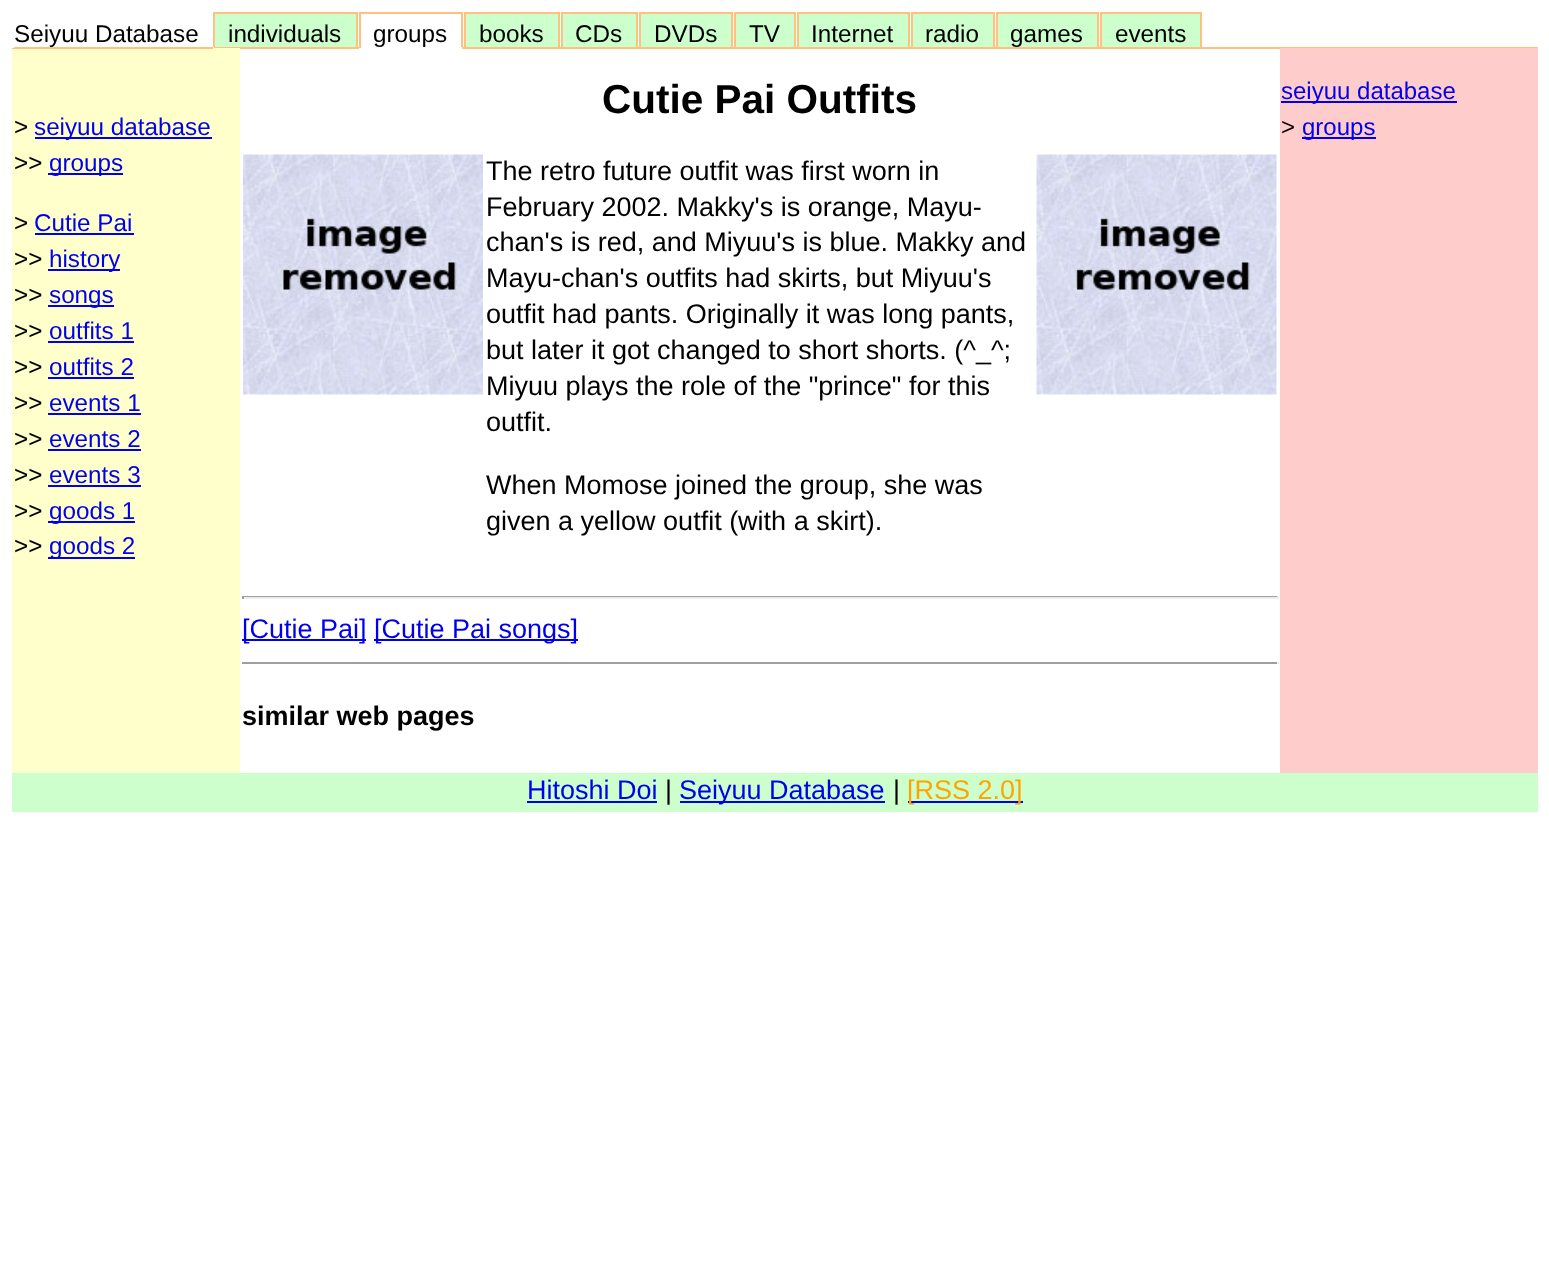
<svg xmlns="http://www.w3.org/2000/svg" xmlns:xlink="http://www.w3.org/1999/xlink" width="1549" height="1282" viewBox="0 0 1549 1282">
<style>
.cls-1{font:24.25px Liberation Sans;fill:#000000}
.cls-2{font:24.25px Liberation Sans;fill:#0000ee}
.cls-3{font:bold 40.5px Liberation Sans;fill:#000000}
.cls-4{font:27px Liberation Sans;fill:#000000}
.cls-5{font:27px Liberation Sans;fill:#0000ee}
.cls-6{font:bold 27px Liberation Sans;fill:#000000}
.cls-7{font:24px Liberation Sans;fill:#0000ee}
.cls-8{font:24px Liberation Sans;fill:#000000}
.cls-9{font:27px Liberation Sans;fill:#ffa500}
</style>
<rect width="100%" height="100%" fill="#ffffff"/>
<rect fill="#ffc080" x="214" y="47" width="1324" height="2"/>
<rect fill="#ffffcc" x="12" y="48" width="228" height="725"/>
<rect fill="#ffc080" x="12" y="47" width="201" height="2"/>
<rect fill="#ffffff" x="12" y="47" width="2" height="1"/>
<rect fill="#ccffcc" x="215" y="14" width="141" height="33"/>
<rect fill="#ffc080" x="213" y="12" width="144" height="2"/>
<rect fill="#ffc080" x="356" y="12" width="2" height="35"/>
<rect fill="#ffc080" x="213" y="12" width="2" height="35"/>
<rect fill="#ffc080" x="359" y="12" width="103" height="2"/>
<rect fill="#ffc080" x="461" y="12" width="2" height="36"/>
<rect fill="#ffffff" x="359" y="47" width="103" height="2"/>
<rect fill="#ffc080" x="359" y="12" width="2" height="36"/>
<rect fill="#ccffcc" x="466" y="14" width="92" height="33"/>
<rect fill="#ffc080" x="464" y="12" width="96" height="2"/>
<rect fill="#ffc080" x="558" y="12" width="2" height="35"/>
<rect fill="#ffc080" x="464" y="12" width="2" height="35"/>
<rect fill="#ccffcc" x="563" y="14" width="73" height="33"/>
<rect fill="#ffc080" x="561" y="12" width="77" height="2"/>
<rect fill="#ffc080" x="636" y="12" width="2" height="35"/>
<rect fill="#ffc080" x="561" y="12" width="2" height="35"/>
<rect fill="#ccffcc" x="641" y="14" width="90" height="33"/>
<rect fill="#ffc080" x="639" y="12" width="93" height="2"/>
<rect fill="#ffc080" x="731" y="12" width="2" height="35"/>
<rect fill="#ffc080" x="639" y="12" width="2" height="35"/>
<rect fill="#ccffcc" x="736" y="14" width="58" height="33"/>
<rect fill="#ffc080" x="734" y="12" width="61" height="2"/>
<rect fill="#ffc080" x="794" y="12" width="2" height="35"/>
<rect fill="#ffc080" x="734" y="12" width="2" height="35"/>
<rect fill="#ccffcc" x="799" y="14" width="109" height="33"/>
<rect fill="#ffc080" x="797" y="12" width="112" height="2"/>
<rect fill="#ffc080" x="908" y="12" width="2" height="35"/>
<rect fill="#ffc080" x="797" y="12" width="2" height="35"/>
<rect fill="#ccffcc" x="913" y="14" width="80" height="33"/>
<rect fill="#ffc080" x="911" y="12" width="84" height="2"/>
<rect fill="#ffc080" x="993" y="12" width="2" height="35"/>
<rect fill="#ffc080" x="911" y="12" width="2" height="35"/>
<rect fill="#ccffcc" x="998" y="14" width="99" height="33"/>
<rect fill="#ffc080" x="996" y="12" width="102" height="2"/>
<rect fill="#ffc080" x="1097" y="12" width="2" height="35"/>
<rect fill="#ffc080" x="996" y="12" width="2" height="35"/>
<rect fill="#ccffcc" x="1102" y="14" width="98" height="33"/>
<rect fill="#ffc080" x="1100" y="12" width="102" height="2"/>
<rect fill="#ffc080" x="1200" y="12" width="2" height="35"/>
<rect fill="#ffc080" x="1100" y="12" width="2" height="35"/>
<rect fill="#0000ee" x="35" y="137" width="177" height="2"/>
<rect fill="#0000ee" x="48" y="173" width="75" height="2"/>
<rect fill="#0000ee" x="35" y="233" width="99" height="2"/>
<rect fill="#0000ee" x="48" y="269" width="72" height="2"/>
<rect fill="#0000ee" x="48" y="305" width="66" height="2"/>
<rect fill="#0000ee" x="48" y="341" width="86" height="2"/>
<rect fill="#0000ee" x="48" y="377" width="86" height="2"/>
<rect fill="#0000ee" x="48" y="413" width="93" height="2"/>
<rect fill="#0000ee" x="48" y="449" width="93" height="2"/>
<rect fill="#0000ee" x="48" y="485" width="93" height="2"/>
<rect fill="#0000ee" x="48" y="521" width="87" height="2"/>
<rect fill="#0000ee" x="48" y="557" width="87" height="2"/>
<image xlink:href="image0.png" x="243" y="154" width="240" height="241"/>
<image xlink:href="image1.png" x="1036" y="154" width="241" height="241"/>
<rect fill="#9f9f9f" x="242" y="596" width="1036" height="1"/>
<rect fill="#eeeeee" x="1277" y="596" width="2" height="3"/>
<rect fill="#eeeeee" x="242" y="597" width="1036" height="2"/>
<rect fill="#9f9f9f" x="242" y="596" width="2" height="3"/>
<rect fill="#0000ee" x="242" y="639" width="124" height="2"/>
<rect fill="#0000ee" x="374" y="639" width="204" height="2"/>
<rect fill="#9f9f9f" x="242" y="662" width="1036" height="2"/>
<rect fill="#eeeeee" x="1277" y="662" width="2" height="2"/>
<rect fill="#ffcccc" x="1280" y="48" width="258" height="725"/>
<rect fill="#0000ee" x="1281" y="101" width="176" height="2"/>
<rect fill="#0000ee" x="1302" y="137" width="74" height="2"/>
<rect fill="#ccffcc" x="12" y="773" width="1526" height="39"/>
<rect fill="#0000ee" x="527" y="801" width="130" height="2"/>
<rect fill="#0000ee" x="680" y="801" width="205" height="2"/>
<rect fill="#0000ee" x="908" y="801" width="115" height="2"/>
<text class="cls-1" x="14" y="42">Seiyuu Database</text>
<text class="cls-1" x="228" y="42">individuals</text>
<text class="cls-1" x="373" y="42">groups</text>
<text class="cls-1" x="479" y="42">books</text>
<text class="cls-1" x="575" y="42">CDs</text>
<text class="cls-1" x="654" y="42">DVDs</text>
<text class="cls-1" x="749" y="42">TV</text>
<text class="cls-1" x="811" y="42">Internet</text>
<text class="cls-1" x="925" y="42">radio</text>
<text class="cls-1" x="1010" y="42">games</text>
<text class="cls-1" x="1115" y="42">events</text>
<text class="cls-1" x="14" y="135">&gt;</text>
<text class="cls-2" x="34" y="135">seiyuu database</text>
<text class="cls-1" x="14" y="171">&gt;&gt;</text>
<text class="cls-2" x="49" y="171">groups</text>
<text class="cls-1" x="14" y="231">&gt;</text>
<text class="cls-2" x="34" y="231">Cutie Pai</text>
<text class="cls-1" x="14" y="267">&gt;&gt;</text>
<text class="cls-2" x="49" y="267">history</text>
<text class="cls-1" x="14" y="303">&gt;&gt;</text>
<text class="cls-2" x="49" y="303">songs</text>
<text class="cls-1" x="14" y="339">&gt;&gt;</text>
<text class="cls-2" x="49" y="339">outfits 1</text>
<text class="cls-1" x="14" y="375">&gt;&gt;</text>
<text class="cls-2" x="49" y="375">outfits 2</text>
<text class="cls-1" x="14" y="411">&gt;&gt;</text>
<text class="cls-2" x="49" y="411">events 1</text>
<text class="cls-1" x="14" y="447">&gt;&gt;</text>
<text class="cls-2" x="49" y="447">events 2</text>
<text class="cls-1" x="14" y="483">&gt;&gt;</text>
<text class="cls-2" x="49" y="483">events 3</text>
<text class="cls-1" x="14" y="519">&gt;&gt;</text>
<text class="cls-2" x="49" y="519">goods 1</text>
<text class="cls-1" x="14" y="554">&gt;&gt;</text>
<text class="cls-2" x="49" y="554">goods 2</text>
<text class="cls-3" x="602" y="113">Cutie Pai Outfits</text>
<text class="cls-4"><tspan x="486" y="180">The retro future outfit was first worn in</tspan><tspan x="486" y="216">February 2002. Makky's is orange, Mayu-</tspan><tspan x="486" y="251">chan's is red, and Miyuu's is blue. Makky and</tspan><tspan x="486" y="287">Mayu-chan's outfits had skirts, but Miyuu's</tspan><tspan x="486" y="323">outfit had pants. Originally it was long pants,</tspan><tspan x="486" y="359">but later it got changed to short shorts. (^_^;</tspan><tspan x="486" y="395">Miyuu plays the role of the "prince" for this</tspan><tspan x="486" y="431">outfit.</tspan></text>
<text class="cls-4"><tspan x="486" y="494">When Momose joined the group, she was</tspan><tspan x="486" y="530">given a yellow outfit (with a skirt).</tspan></text>
<text class="cls-5" x="242" y="638">[Cutie Pai]</text>
<text class="cls-5" x="374" y="638">[Cutie Pai songs]</text>
<text class="cls-6" x="242" y="725">similar web pages</text>
<text class="cls-7" x="1281" y="99">seiyuu database</text>
<text class="cls-8" x="1281" y="135">&gt;</text>
<text class="cls-7" x="1302" y="135">groups</text>
<text class="cls-5" x="527" y="799">Hitoshi Doi</text>
<text class="cls-4" x="665" y="799">|</text>
<text class="cls-5" x="679" y="799">Seiyuu Database</text>
<text class="cls-4" x="893" y="799">|</text>
<text class="cls-9" x="907" y="799">[RSS 2.0]</text>
</svg>
